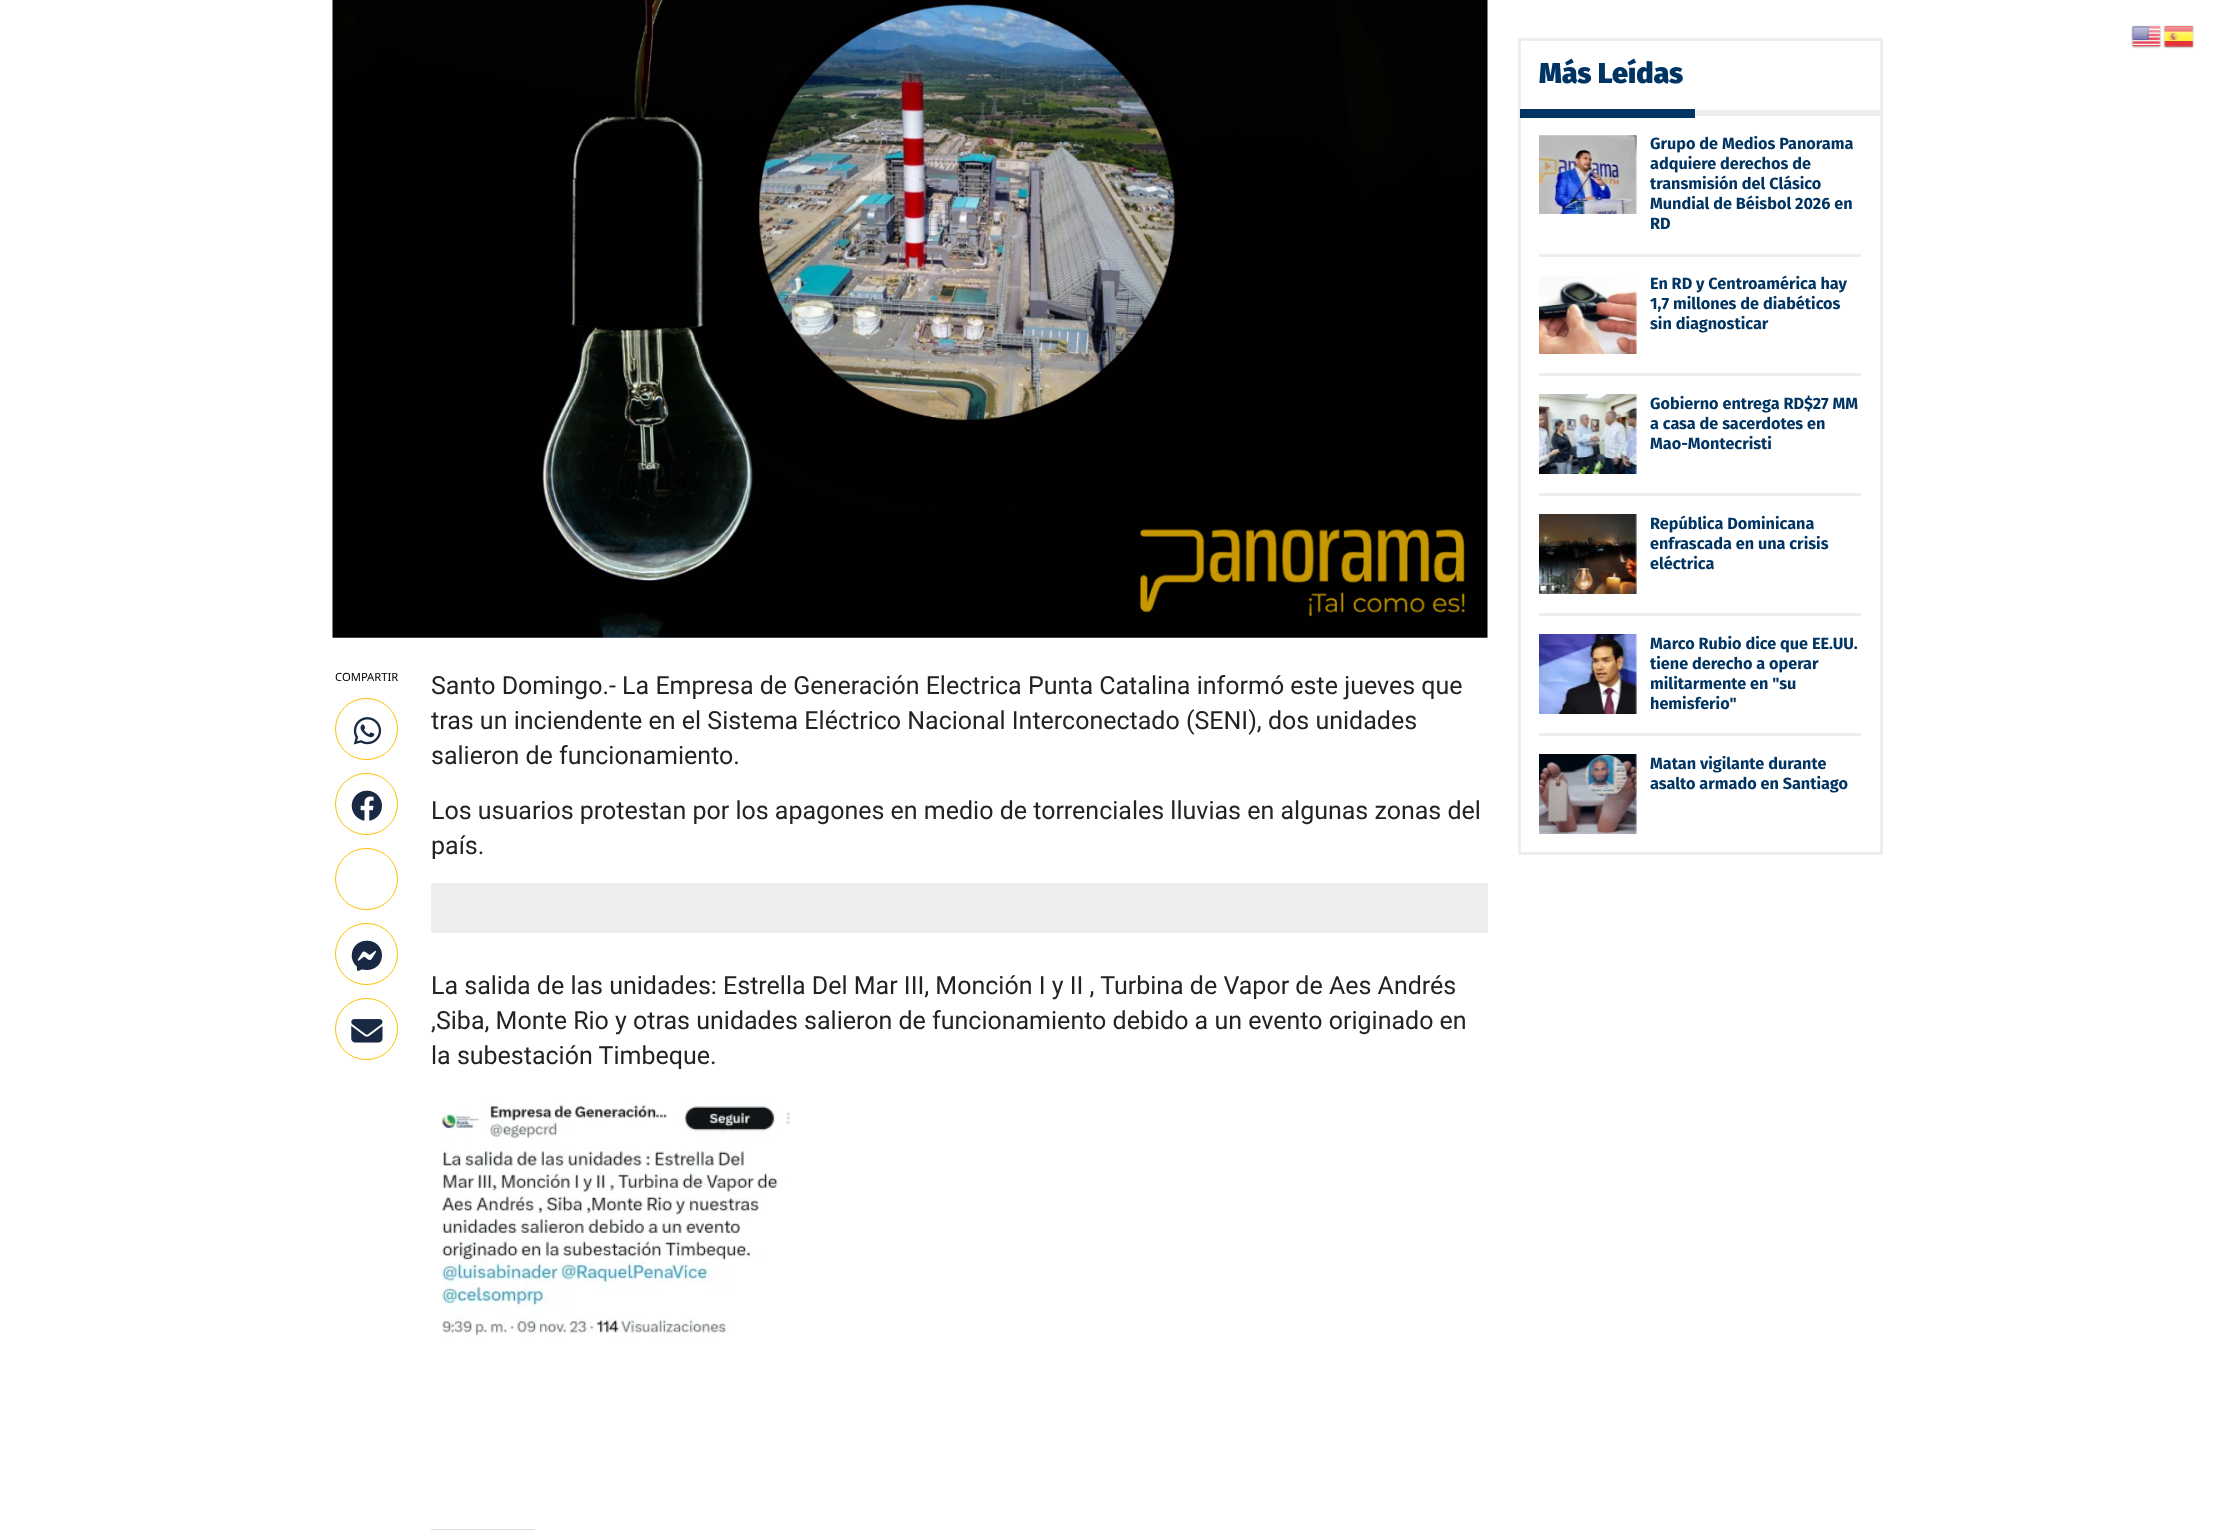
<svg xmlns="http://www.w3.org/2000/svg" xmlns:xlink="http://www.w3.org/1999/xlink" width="2214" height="1532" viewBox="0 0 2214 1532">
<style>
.cls-1{font:900 28.75px Fira Sans;fill:#003463}
.cls-2{font:bold 16.25px Fira Sans;fill:#003463}
.cls-3{font:11.25px Noto Sans;fill:#000000}
.cls-4{font:25px Roboto;fill:#232323}
</style>
<rect width="100%" height="100%" fill="#ffffff"/>
<image xlink:href="image0.png" x="2131" y="25" width="31" height="24"/>
<image xlink:href="image1.png" x="2163" y="25" width="31" height="24"/>
<rect fill="none" stroke="#eeeeee" stroke-width="3" x="1519.5" y="39.5" width="362" height="814"/>
<rect fill="#eeeeee" x="1695" y="110" width="185" height="6"/>
<rect fill="#003463" x="1520" y="109" width="175" height="9"/>
<rect fill="#eeeeee" x="1539" y="254" width="322" height="3"/>
<image xlink:href="image2.png" x="1539" y="135" width="98" height="79"/>
<rect fill="#eeeeee" x="1539" y="373" width="322" height="3"/>
<image xlink:href="image3.png" x="1539" y="276" width="98" height="78"/>
<rect fill="#eeeeee" x="1539" y="493" width="322" height="3"/>
<image xlink:href="image4.png" x="1539" y="394" width="98" height="80"/>
<rect fill="#eeeeee" x="1539" y="613" width="322" height="3"/>
<image xlink:href="image5.png" x="1539" y="514" width="98" height="80"/>
<rect fill="#eeeeee" x="1539" y="733" width="322" height="3"/>
<image xlink:href="image6.png" x="1539" y="634" width="98" height="80"/>
<image xlink:href="image7.png" x="1539" y="754" width="98" height="80"/>
<image xlink:href="image8.png" x="332" y="0" width="1156" height="638"/>
<rect fill="none" stroke="#fec200" x="335.5" y="698.5" width="62" height="61" rx="30.5"/>
<image xlink:href="image9.png" x="353" y="717" width="29" height="28"/>
<rect fill="none" stroke="#fec200" x="335.5" y="773.5" width="62" height="61" rx="30.5"/>
<image xlink:href="image10.png" x="351" y="790" width="31" height="31"/>
<rect fill="none" stroke="#fec200" x="335.5" y="848.5" width="62" height="61" rx="30.5"/>
<rect fill="none" stroke="#fec200" x="335.5" y="923.5" width="62" height="61" rx="30.5"/>
<image xlink:href="image11.png" x="351" y="940" width="31" height="31"/>
<rect fill="none" stroke="#fec200" x="335.5" y="998.5" width="62" height="61" rx="30.5"/>
<image xlink:href="image12.png" x="351" y="1019" width="32" height="24"/>
<rect fill="#eeeeee" x="431" y="883" width="1057" height="50"/>
<image xlink:href="image13.png" x="441" y="1103" width="350" height="235"/>
<rect fill="#dcdcde" x="431" y="1529" width="104" height="1"/>
<text class="cls-1" x="1539" y="83">Más Leídas</text>
<text class="cls-2"><tspan x="1650" y="149">Grupo de Medios Panorama</tspan><tspan x="1650" y="169">adquiere derechos de</tspan><tspan x="1650" y="189">transmisión del Clásico</tspan><tspan x="1650" y="209">Mundial de Béisbol 2026 en</tspan><tspan x="1650" y="229">RD</tspan></text>
<text class="cls-2"><tspan x="1650" y="289">En RD y Centroamérica hay</tspan><tspan x="1650" y="309">1,7 millones de diabéticos</tspan><tspan x="1650" y="329">sin diagnosticar</tspan></text>
<text class="cls-2"><tspan x="1650" y="409">Gobierno entrega RD$27 MM</tspan><tspan x="1650" y="429">a casa de sacerdotes en</tspan><tspan x="1650" y="449">Mao-Montecristi</tspan></text>
<text class="cls-2"><tspan x="1650" y="529">República Dominicana</tspan><tspan x="1650" y="549">enfrascada en una crisis</tspan><tspan x="1650" y="569">eléctrica</tspan></text>
<text class="cls-2"><tspan x="1650" y="649">Marco Rubio dice que EE.UU.</tspan><tspan x="1650" y="669">tiene derecho a operar</tspan><tspan x="1650" y="689">militarmente en "su</tspan><tspan x="1650" y="709">hemisferio"</tspan></text>
<text class="cls-2"><tspan x="1650" y="769">Matan vigilante durante</tspan><tspan x="1650" y="789">asalto armado en Santiago</tspan></text>
<text class="cls-3" x="335" y="681">COMPARTIR</text>
<text class="cls-4"><tspan x="431" y="694">Santo Domingo.- La Empresa de Generación Electrica Punta Catalina informó este jueves que</tspan><tspan x="431" y="729">tras un inciendente en el Sistema Eléctrico Nacional Interconectado (SENI), dos unidades</tspan><tspan x="431" y="764">salieron de funcionamiento.</tspan></text>
<text class="cls-4"><tspan x="431" y="819">Los usuarios protestan por los apagones en medio de torrenciales lluvias en algunas zonas del</tspan><tspan x="431" y="854">país.</tspan></text>
<text class="cls-4"><tspan x="431" y="994">La salida de las unidades: Estrella Del Mar III, Monción I y II , Turbina de Vapor de Aes Andrés</tspan><tspan x="431" y="1029">,Siba, Monte Rio y otras unidades salieron de funcionamiento debido a un evento originado en</tspan><tspan x="431" y="1064">la subestación Timbeque.</tspan></text>
</svg>
